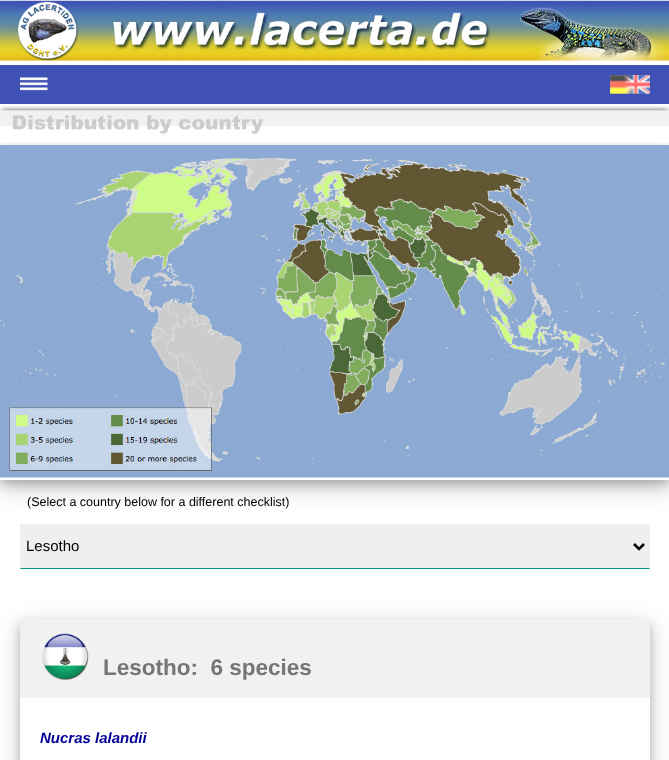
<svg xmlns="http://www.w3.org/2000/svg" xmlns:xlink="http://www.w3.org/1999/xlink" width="669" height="760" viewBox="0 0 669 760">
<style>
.cls-1{font:12.5px Liberation Sans;fill:#000000}
.cls-2{font:15px Liberation Sans;fill:#000000}
.cls-3{font:bold 22.5px Liberation Sans;fill:#757575}
.cls-4{font:italic bold 15px Liberation Sans;fill:#000099}
</style>
<defs>
<clipPath id="clip1"><path d="M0 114H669V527H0ZM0 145H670V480H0Z" clip-rule="evenodd"/></clipPath>
<clipPath id="clip2"><path d="M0 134H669V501H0ZM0 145H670V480H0Z" clip-rule="evenodd"/></clipPath>
<clipPath id="clip3"><path d="M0 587H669V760H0ZM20 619H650V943H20Z" clip-rule="evenodd"/></clipPath>
<clipPath id="clip4"><path d="M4 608H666V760H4ZM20 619H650V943H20Z" clip-rule="evenodd"/></clipPath>
</defs>
<rect width="100%" height="100%" fill="#ffffff"/>
<image xlink:href="image0.png" x="0" y="0" width="669" height="61"/>
<rect fill="#3f51b5" x="0" y="65" width="669" height="39"/>
<image xlink:href="image1.png" x="20" y="77" width="28" height="14"/>
<image xlink:href="image2.png" x="610" y="75" width="40" height="19"/>
<g clip-path="url(#clip1)">
<rect fill="#000000" fill-opacity="0.19" filter="blur(12.5px)" x="0" y="153" width="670" height="335"/>
</g>
<g clip-path="url(#clip2)">
<rect fill="#000000" fill-opacity="0.2" filter="blur(5px)" x="0" y="150" width="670" height="335"/>
</g>
<image xlink:href="image3.png" x="0" y="105" width="669" height="38"/>
<image xlink:href="image4.png" x="0" y="145" width="669" height="333"/>
<rect fill="#efefef" x="20" y="524" width="630" height="45"/>
<path fill="#009688" d="M650 569H20L21 568H649Z"/>
<path fill="none" stroke="#000000" stroke-width="2.5" d="M634 544L639 549L644 544"/>
<g clip-path="url(#clip3)">
<rect fill="#000000" fill-opacity="0.19" filter="blur(12.5px)" x="20" y="626" width="630" height="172"/>
</g>
<g clip-path="url(#clip4)">
<rect fill="#000000" fill-opacity="0.2" filter="blur(5px)" x="20" y="624" width="630" height="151"/>
</g>
<rect fill="#f1f1f1" x="20" y="619" width="630" height="79"/>
<image xlink:href="image5.png" x="42" y="633" width="47" height="48"/>
<text class="cls-1" x="27" y="506">(Select a country below for a different checklist)</text>
<text class="cls-2" x="26" y="551">Lesotho</text>
<text class="cls-3" xml:space="preserve" x="103" y="675">Lesotho:  6 species</text>
<text class="cls-4" x="40" y="743">Nucras lalandii</text>
</svg>
